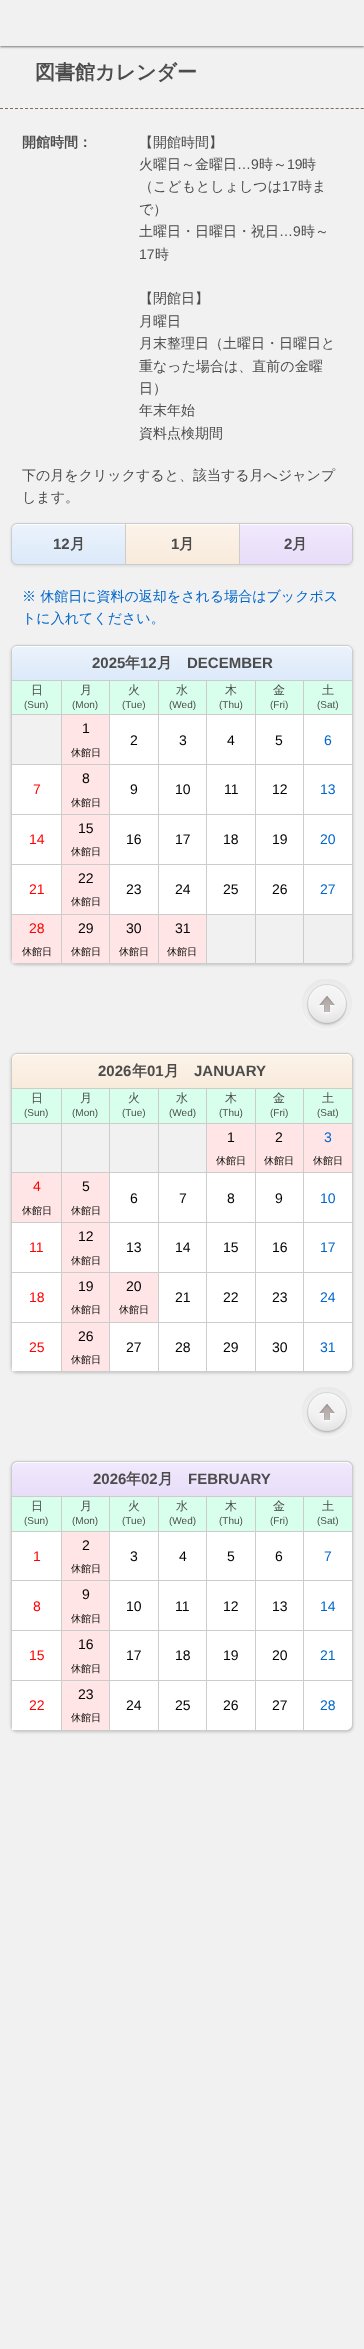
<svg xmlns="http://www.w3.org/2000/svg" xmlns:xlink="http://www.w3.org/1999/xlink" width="364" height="2349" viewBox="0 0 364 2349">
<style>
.cls-1{font:bold 20px WenQuanYi Zen Hei;fill:#4c4c4c}
.cls-2{font:bold 14px WenQuanYi Zen Hei;fill:#4c4c4c}
.cls-3{font:500 14px WenQuanYi Zen Hei;fill:#4c4c4c}
.cls-4{font:14px Liberation Sans;fill:#4c4c4c}
.cls-5{font:bold 15px Liberation Sans;fill:#4c4c4c}
.cls-6{font:bold 15px WenQuanYi Zen Hei;fill:#4c4c4c}
.cls-7{font:500 14px WenQuanYi Zen Hei;fill:#0066cc}
.cls-8{font:500 12px WenQuanYi Zen Hei;fill:#4c4c4c}
.cls-9{font:10px Liberation Sans;fill:#4c4c4c}
.cls-10{font:14px Liberation Sans;fill:#000000}
.cls-11{font:500 10px WenQuanYi Zen Hei;fill:#000000}
.cls-12{font:14px Liberation Sans;fill:#0066cc}
.cls-13{font:14px Liberation Sans;fill:#ff0000}
</style>
<defs>
<clipPath id="clip1"><rect x="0" y="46" width="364" height="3"/></clipPath>
<linearGradient id="g1" gradientUnits="userSpaceOnUse" x1="69" y1="524" x2="69" y2="564"><stop offset="0" stop-color="#ebf3fc"/><stop offset="1" stop-color="#dce9f9"/></linearGradient>
<linearGradient id="g2" gradientUnits="userSpaceOnUse" x1="183" y1="524" x2="183" y2="564"><stop offset="0" stop-color="#fcf3e9"/><stop offset="1" stop-color="#f8ebdc"/></linearGradient>
<linearGradient id="g3" gradientUnits="userSpaceOnUse" x1="296" y1="524" x2="296" y2="564"><stop offset="0" stop-color="#f1e9fc"/><stop offset="1" stop-color="#e7ddf9"/></linearGradient>
<clipPath id="clip2"><path d="M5 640H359V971H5ZM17 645H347C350.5 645 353 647.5 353 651V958C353 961.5 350.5 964 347 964H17C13.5 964 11 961.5 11 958V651C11 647.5 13.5 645 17 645Z" clip-rule="evenodd"/></clipPath>
<linearGradient id="g4" gradientUnits="userSpaceOnUse" x1="182" y1="646" x2="182" y2="680"><stop offset="0" stop-color="#ebf3fc"/><stop offset="1" stop-color="#dce9f9"/></linearGradient>
<clipPath id="clip3"><path d="M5 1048H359V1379H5ZM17 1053H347C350.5 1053 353 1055.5 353 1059V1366C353 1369.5 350.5 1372 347 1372H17C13.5 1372 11 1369.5 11 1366V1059C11 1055.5 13.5 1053 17 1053Z" clip-rule="evenodd"/></clipPath>
<linearGradient id="g5" gradientUnits="userSpaceOnUse" x1="182" y1="1054" x2="182" y2="1088"><stop offset="0" stop-color="#fcf3e9"/><stop offset="1" stop-color="#f8ebdc"/></linearGradient>
<linearGradient id="g6" gradientUnits="userSpaceOnUse" x1="182" y1="1462" x2="182" y2="1496"><stop offset="0" stop-color="#f1e9fc"/><stop offset="1" stop-color="#e7ddf9"/></linearGradient>
</defs>
<rect width="100%" height="100%" fill="#f1f1f1"/>
<g clip-path="url(#clip1)">
<rect fill="#000000" fill-opacity="0.5" filter="blur(1px)" x="0" y="1" width="364" height="46"/>
</g>
<path fill="none" stroke="#89685a" stroke-dasharray="3 2.01" d="M0 108.5H364"/>
<rect fill="#000000" fill-opacity="0.1" filter="blur(1.5px)" x="11" y="524" width="342" height="42" rx="6"/>
<rect fill="none" stroke="#cccccc" x="11.5" y="523.5" width="341" height="41" rx="5.5"/>
<path fill="url(#g1)" d="M18 524H125V564H18C14.5 564 12 561.5 12 558V530C12 526.5 14.5 524 18 524Z"/>
<path fill="#ffffff" fill-opacity="0.8" d="M18 525H125V524H18C15 524 12 527 12 530V531C12 528 15 525 18 525Z"/>
<rect fill="url(#g2)" x="126" y="525" width="113" height="39"/>
<rect fill="#fefdfb" x="126" y="524" width="113" height="1"/>
<rect fill="#cccccc" x="125" y="524" width="1" height="40"/>
<path fill="url(#g3)" d="M239 524H346C349.5 524 352 526.5 352 530V558C352 561.5 349.5 564 346 564H239Z"/>
<path fill="#fcfbfe" d="M240 525H346C349 525 352 528 352 531V530C352 527 349 524 346 524H240Z"/>
<rect fill="#cccccc" x="239" y="524" width="1" height="40"/>
<g clip-path="url(#clip2)">
<rect fill="#000000" fill-opacity="0.2" filter="blur(1.5px)" x="11" y="646" width="342" height="319" rx="6"/>
</g>
<rect fill="none" stroke="#cccccc" x="11.5" y="645.5" width="341" height="318" rx="5.5"/>
<path fill="url(#g4)" d="M18 646H346C349.5 646 352 648.5 352 652V680H12V652C12 648.5 14.5 646 18 646Z"/>
<path fill="#ffffff" fill-opacity="0.8" d="M18 647H346C349 647 352 650 352 653V652C352 649 349 646 346 646H18C15 646 12 649 12 652V653C12 650 15 647 18 647Z"/>
<rect fill="#d7ffeb" x="12" y="681" width="49" height="33"/>
<rect fill="#cccccc" x="12" y="680" width="340" height="1"/>
<rect fill="#d7ffeb" x="62" y="681" width="47" height="33"/>
<rect fill="#cccccc" x="61" y="680" width="1" height="34"/>
<rect fill="#d7ffeb" x="110" y="681" width="48" height="33"/>
<rect fill="#cccccc" x="109" y="680" width="1" height="34"/>
<rect fill="#d7ffeb" x="159" y="681" width="47" height="33"/>
<rect fill="#cccccc" x="158" y="680" width="1" height="34"/>
<rect fill="#d7ffeb" x="207" y="681" width="48" height="33"/>
<rect fill="#cccccc" x="206" y="680" width="1" height="34"/>
<rect fill="#d7ffeb" x="256" y="681" width="47" height="33"/>
<rect fill="#cccccc" x="255" y="680" width="1" height="34"/>
<rect fill="#d7ffeb" x="304" y="681" width="48" height="33"/>
<rect fill="#cccccc" x="303" y="680" width="1" height="34"/>
<rect fill="#cccccc" x="12" y="714" width="340" height="1"/>
<rect fill="#ffe5e5" x="62" y="715" width="47" height="49"/>
<rect fill="#cccccc" x="61" y="714" width="1" height="50"/>
<rect fill="#ffffff" x="110" y="715" width="48" height="49"/>
<rect fill="#cccccc" x="109" y="714" width="1" height="50"/>
<rect fill="#ffffff" x="159" y="715" width="47" height="49"/>
<rect fill="#cccccc" x="158" y="714" width="1" height="50"/>
<rect fill="#ffffff" x="207" y="715" width="48" height="49"/>
<rect fill="#cccccc" x="206" y="714" width="1" height="50"/>
<rect fill="#ffffff" x="256" y="715" width="47" height="49"/>
<rect fill="#cccccc" x="255" y="714" width="1" height="50"/>
<rect fill="#ffffff" x="304" y="715" width="48" height="49"/>
<rect fill="#cccccc" x="303" y="714" width="1" height="50"/>
<rect fill="#ffffff" x="12" y="765" width="49" height="49"/>
<rect fill="#cccccc" x="12" y="764" width="340" height="1"/>
<rect fill="#ffe5e5" x="62" y="765" width="47" height="49"/>
<rect fill="#cccccc" x="61" y="764" width="1" height="50"/>
<rect fill="#ffffff" x="110" y="765" width="48" height="49"/>
<rect fill="#cccccc" x="109" y="764" width="1" height="50"/>
<rect fill="#ffffff" x="159" y="765" width="47" height="49"/>
<rect fill="#cccccc" x="158" y="764" width="1" height="50"/>
<rect fill="#ffffff" x="207" y="765" width="48" height="49"/>
<rect fill="#cccccc" x="206" y="764" width="1" height="50"/>
<rect fill="#ffffff" x="256" y="765" width="47" height="49"/>
<rect fill="#cccccc" x="255" y="764" width="1" height="50"/>
<rect fill="#ffffff" x="304" y="765" width="48" height="49"/>
<rect fill="#cccccc" x="303" y="764" width="1" height="50"/>
<rect fill="#ffffff" x="12" y="815" width="49" height="49"/>
<rect fill="#cccccc" x="12" y="814" width="340" height="1"/>
<rect fill="#ffe5e5" x="62" y="815" width="47" height="49"/>
<rect fill="#cccccc" x="61" y="814" width="1" height="50"/>
<rect fill="#ffffff" x="110" y="815" width="48" height="49"/>
<rect fill="#cccccc" x="109" y="814" width="1" height="50"/>
<rect fill="#ffffff" x="159" y="815" width="47" height="49"/>
<rect fill="#cccccc" x="158" y="814" width="1" height="50"/>
<rect fill="#ffffff" x="207" y="815" width="48" height="49"/>
<rect fill="#cccccc" x="206" y="814" width="1" height="50"/>
<rect fill="#ffffff" x="256" y="815" width="47" height="49"/>
<rect fill="#cccccc" x="255" y="814" width="1" height="50"/>
<rect fill="#ffffff" x="304" y="815" width="48" height="49"/>
<rect fill="#cccccc" x="303" y="814" width="1" height="50"/>
<rect fill="#ffffff" x="12" y="865" width="49" height="49"/>
<rect fill="#cccccc" x="12" y="864" width="340" height="1"/>
<rect fill="#ffe5e5" x="62" y="865" width="47" height="49"/>
<rect fill="#cccccc" x="61" y="864" width="1" height="50"/>
<rect fill="#ffffff" x="110" y="865" width="48" height="49"/>
<rect fill="#cccccc" x="109" y="864" width="1" height="50"/>
<rect fill="#ffffff" x="159" y="865" width="47" height="49"/>
<rect fill="#cccccc" x="158" y="864" width="1" height="50"/>
<rect fill="#ffffff" x="207" y="865" width="48" height="49"/>
<rect fill="#cccccc" x="206" y="864" width="1" height="50"/>
<rect fill="#ffffff" x="256" y="865" width="47" height="49"/>
<rect fill="#cccccc" x="255" y="864" width="1" height="50"/>
<rect fill="#ffffff" x="304" y="865" width="48" height="49"/>
<rect fill="#cccccc" x="303" y="864" width="1" height="50"/>
<rect fill="#ffe5e5" x="12" y="915" width="49" height="48"/>
<rect fill="#cccccc" x="12" y="914" width="291" height="1"/>
<rect fill="#ffe5e5" x="62" y="915" width="47" height="48"/>
<rect fill="#cccccc" x="61" y="914" width="1" height="49"/>
<rect fill="#ffe5e5" x="110" y="915" width="48" height="48"/>
<rect fill="#cccccc" x="109" y="914" width="1" height="49"/>
<rect fill="#ffe5e5" x="159" y="915" width="47" height="48"/>
<rect fill="#cccccc" x="158" y="914" width="1" height="49"/>
<rect fill="#cccccc" x="206" y="914" width="1" height="49"/>
<rect fill="#cccccc" x="255" y="914" width="1" height="49"/>
<path fill="#f0f0f0" d="M303 914H352V957C352 960.5 349.5 963 346 963H303Z"/>
<rect fill="#cccccc" x="303" y="914" width="49" height="1"/>
<rect fill="#cccccc" x="303" y="914" width="1" height="49"/>
<image xlink:href="image0.png" x="302" y="979" width="50" height="51"/>
<g clip-path="url(#clip3)">
<rect fill="#000000" fill-opacity="0.2" filter="blur(1.5px)" x="11" y="1054" width="342" height="319" rx="6"/>
</g>
<rect fill="none" stroke="#cccccc" x="11.5" y="1053.5" width="341" height="318" rx="5.5"/>
<path fill="url(#g5)" d="M18 1054H346C349.5 1054 352 1056.5 352 1060V1088H12V1060C12 1056.5 14.5 1054 18 1054Z"/>
<path fill="#ffffff" fill-opacity="0.8" d="M18 1055H346C349 1055 352 1058 352 1061V1060C352 1057 349 1054 346 1054H18C15 1054 12 1057 12 1060V1061C12 1058 15 1055 18 1055Z"/>
<rect fill="#d7ffeb" x="12" y="1089" width="49" height="34"/>
<rect fill="#cccccc" x="12" y="1088" width="340" height="1"/>
<rect fill="#d7ffeb" x="62" y="1089" width="47" height="34"/>
<rect fill="#cccccc" x="61" y="1088" width="1" height="35"/>
<rect fill="#d7ffeb" x="110" y="1089" width="48" height="34"/>
<rect fill="#cccccc" x="109" y="1088" width="1" height="35"/>
<rect fill="#d7ffeb" x="159" y="1089" width="47" height="34"/>
<rect fill="#cccccc" x="158" y="1088" width="1" height="35"/>
<rect fill="#d7ffeb" x="207" y="1089" width="48" height="34"/>
<rect fill="#cccccc" x="206" y="1088" width="1" height="35"/>
<rect fill="#d7ffeb" x="256" y="1089" width="47" height="34"/>
<rect fill="#cccccc" x="255" y="1088" width="1" height="35"/>
<rect fill="#d7ffeb" x="304" y="1089" width="48" height="34"/>
<rect fill="#cccccc" x="303" y="1088" width="1" height="35"/>
<rect fill="#cccccc" x="12" y="1123" width="340" height="1"/>
<rect fill="#cccccc" x="61" y="1123" width="1" height="49"/>
<rect fill="#cccccc" x="109" y="1123" width="1" height="49"/>
<rect fill="#cccccc" x="158" y="1123" width="1" height="49"/>
<rect fill="#ffe5e5" x="207" y="1124" width="48" height="48"/>
<rect fill="#cccccc" x="206" y="1123" width="1" height="49"/>
<rect fill="#ffe5e5" x="256" y="1124" width="47" height="48"/>
<rect fill="#cccccc" x="255" y="1123" width="1" height="49"/>
<rect fill="#ffe5e5" x="304" y="1124" width="48" height="48"/>
<rect fill="#cccccc" x="303" y="1123" width="1" height="49"/>
<rect fill="#ffe5e5" x="12" y="1173" width="49" height="49"/>
<rect fill="#cccccc" x="12" y="1172" width="340" height="1"/>
<rect fill="#ffe5e5" x="62" y="1173" width="47" height="49"/>
<rect fill="#cccccc" x="61" y="1172" width="1" height="50"/>
<rect fill="#ffffff" x="110" y="1173" width="48" height="49"/>
<rect fill="#cccccc" x="109" y="1172" width="1" height="50"/>
<rect fill="#ffffff" x="159" y="1173" width="47" height="49"/>
<rect fill="#cccccc" x="158" y="1172" width="1" height="50"/>
<rect fill="#ffffff" x="207" y="1173" width="48" height="49"/>
<rect fill="#cccccc" x="206" y="1172" width="1" height="50"/>
<rect fill="#ffffff" x="256" y="1173" width="47" height="49"/>
<rect fill="#cccccc" x="255" y="1172" width="1" height="50"/>
<rect fill="#ffffff" x="304" y="1173" width="48" height="49"/>
<rect fill="#cccccc" x="303" y="1172" width="1" height="50"/>
<rect fill="#ffffff" x="12" y="1223" width="49" height="49"/>
<rect fill="#cccccc" x="12" y="1222" width="340" height="1"/>
<rect fill="#ffe5e5" x="62" y="1223" width="47" height="49"/>
<rect fill="#cccccc" x="61" y="1222" width="1" height="50"/>
<rect fill="#ffffff" x="110" y="1223" width="48" height="49"/>
<rect fill="#cccccc" x="109" y="1222" width="1" height="50"/>
<rect fill="#ffffff" x="159" y="1223" width="47" height="49"/>
<rect fill="#cccccc" x="158" y="1222" width="1" height="50"/>
<rect fill="#ffffff" x="207" y="1223" width="48" height="49"/>
<rect fill="#cccccc" x="206" y="1222" width="1" height="50"/>
<rect fill="#ffffff" x="256" y="1223" width="47" height="49"/>
<rect fill="#cccccc" x="255" y="1222" width="1" height="50"/>
<rect fill="#ffffff" x="304" y="1223" width="48" height="49"/>
<rect fill="#cccccc" x="303" y="1222" width="1" height="50"/>
<rect fill="#ffffff" x="12" y="1273" width="49" height="49"/>
<rect fill="#cccccc" x="12" y="1272" width="340" height="1"/>
<rect fill="#ffe5e5" x="62" y="1273" width="47" height="49"/>
<rect fill="#cccccc" x="61" y="1272" width="1" height="50"/>
<rect fill="#ffe5e5" x="110" y="1273" width="48" height="49"/>
<rect fill="#cccccc" x="109" y="1272" width="1" height="50"/>
<rect fill="#ffffff" x="159" y="1273" width="47" height="49"/>
<rect fill="#cccccc" x="158" y="1272" width="1" height="50"/>
<rect fill="#ffffff" x="207" y="1273" width="48" height="49"/>
<rect fill="#cccccc" x="206" y="1272" width="1" height="50"/>
<rect fill="#ffffff" x="256" y="1273" width="47" height="49"/>
<rect fill="#cccccc" x="255" y="1272" width="1" height="50"/>
<rect fill="#ffffff" x="304" y="1273" width="48" height="49"/>
<rect fill="#cccccc" x="303" y="1272" width="1" height="50"/>
<rect fill="#ffffff" x="12" y="1323" width="49" height="48"/>
<rect fill="#cccccc" x="12" y="1322" width="291" height="1"/>
<rect fill="#ffe5e5" x="62" y="1323" width="47" height="48"/>
<rect fill="#cccccc" x="61" y="1322" width="1" height="49"/>
<rect fill="#ffffff" x="110" y="1323" width="48" height="48"/>
<rect fill="#cccccc" x="109" y="1322" width="1" height="49"/>
<rect fill="#ffffff" x="159" y="1323" width="47" height="48"/>
<rect fill="#cccccc" x="158" y="1322" width="1" height="49"/>
<rect fill="#ffffff" x="207" y="1323" width="48" height="48"/>
<rect fill="#cccccc" x="206" y="1322" width="1" height="49"/>
<rect fill="#ffffff" x="256" y="1323" width="47" height="48"/>
<rect fill="#cccccc" x="255" y="1322" width="1" height="49"/>
<path fill="#ffffff" d="M303 1322H352V1365C352 1368.5 349.5 1371 346 1371H303Z"/>
<rect fill="#cccccc" x="303" y="1322" width="49" height="1"/>
<rect fill="#cccccc" x="303" y="1322" width="1" height="49"/>
<image xlink:href="image0.png" x="302" y="1387" width="50" height="51"/>
<rect fill="#000000" fill-opacity="0.2" filter="blur(1.5px)" x="11" y="1462" width="342" height="270" rx="6"/>
<rect fill="none" stroke="#cccccc" x="11.5" y="1461.5" width="341" height="269" rx="5.5"/>
<path fill="url(#g6)" d="M18 1462H346C349.5 1462 352 1464.5 352 1468V1496H12V1468C12 1464.5 14.5 1462 18 1462Z"/>
<path fill="#fcfbfe" d="M18 1463H346C349 1463 352 1466 352 1469V1468C352 1465 349 1462 346 1462H18C15 1462 12 1465 12 1468V1469C12 1466 15 1463 18 1463Z"/>
<rect fill="#d7ffeb" x="12" y="1497" width="49" height="34"/>
<rect fill="#cccccc" x="12" y="1496" width="340" height="1"/>
<rect fill="#d7ffeb" x="62" y="1497" width="47" height="34"/>
<rect fill="#cccccc" x="61" y="1496" width="1" height="35"/>
<rect fill="#d7ffeb" x="110" y="1497" width="48" height="34"/>
<rect fill="#cccccc" x="109" y="1496" width="1" height="35"/>
<rect fill="#d7ffeb" x="159" y="1497" width="47" height="34"/>
<rect fill="#cccccc" x="158" y="1496" width="1" height="35"/>
<rect fill="#d7ffeb" x="207" y="1497" width="48" height="34"/>
<rect fill="#cccccc" x="206" y="1496" width="1" height="35"/>
<rect fill="#d7ffeb" x="256" y="1497" width="47" height="34"/>
<rect fill="#cccccc" x="255" y="1496" width="1" height="35"/>
<rect fill="#d7ffeb" x="304" y="1497" width="48" height="34"/>
<rect fill="#cccccc" x="303" y="1496" width="1" height="35"/>
<rect fill="#ffffff" x="12" y="1532" width="49" height="48"/>
<rect fill="#cccccc" x="12" y="1531" width="340" height="1"/>
<rect fill="#ffe5e5" x="62" y="1532" width="47" height="48"/>
<rect fill="#cccccc" x="61" y="1531" width="1" height="49"/>
<rect fill="#ffffff" x="110" y="1532" width="48" height="48"/>
<rect fill="#cccccc" x="109" y="1531" width="1" height="49"/>
<rect fill="#ffffff" x="159" y="1532" width="47" height="48"/>
<rect fill="#cccccc" x="158" y="1531" width="1" height="49"/>
<rect fill="#ffffff" x="207" y="1532" width="48" height="48"/>
<rect fill="#cccccc" x="206" y="1531" width="1" height="49"/>
<rect fill="#ffffff" x="256" y="1532" width="47" height="48"/>
<rect fill="#cccccc" x="255" y="1531" width="1" height="49"/>
<rect fill="#ffffff" x="304" y="1532" width="48" height="48"/>
<rect fill="#cccccc" x="303" y="1531" width="1" height="49"/>
<rect fill="#ffffff" x="12" y="1581" width="49" height="49"/>
<rect fill="#cccccc" x="12" y="1580" width="340" height="1"/>
<rect fill="#ffe5e5" x="62" y="1581" width="47" height="49"/>
<rect fill="#cccccc" x="61" y="1580" width="1" height="50"/>
<rect fill="#ffffff" x="110" y="1581" width="48" height="49"/>
<rect fill="#cccccc" x="109" y="1580" width="1" height="50"/>
<rect fill="#ffffff" x="159" y="1581" width="47" height="49"/>
<rect fill="#cccccc" x="158" y="1580" width="1" height="50"/>
<rect fill="#ffffff" x="207" y="1581" width="48" height="49"/>
<rect fill="#cccccc" x="206" y="1580" width="1" height="50"/>
<rect fill="#ffffff" x="256" y="1581" width="47" height="49"/>
<rect fill="#cccccc" x="255" y="1580" width="1" height="50"/>
<rect fill="#ffffff" x="304" y="1581" width="48" height="49"/>
<rect fill="#cccccc" x="303" y="1580" width="1" height="50"/>
<rect fill="#ffffff" x="12" y="1631" width="49" height="49"/>
<rect fill="#cccccc" x="12" y="1630" width="340" height="1"/>
<rect fill="#ffe5e5" x="62" y="1631" width="47" height="49"/>
<rect fill="#cccccc" x="61" y="1630" width="1" height="50"/>
<rect fill="#ffffff" x="110" y="1631" width="48" height="49"/>
<rect fill="#cccccc" x="109" y="1630" width="1" height="50"/>
<rect fill="#ffffff" x="159" y="1631" width="47" height="49"/>
<rect fill="#cccccc" x="158" y="1630" width="1" height="50"/>
<rect fill="#ffffff" x="207" y="1631" width="48" height="49"/>
<rect fill="#cccccc" x="206" y="1630" width="1" height="50"/>
<rect fill="#ffffff" x="256" y="1631" width="47" height="49"/>
<rect fill="#cccccc" x="255" y="1630" width="1" height="50"/>
<rect fill="#ffffff" x="304" y="1631" width="48" height="49"/>
<rect fill="#cccccc" x="303" y="1630" width="1" height="50"/>
<rect fill="#ffffff" x="12" y="1681" width="49" height="49"/>
<rect fill="#cccccc" x="12" y="1680" width="291" height="1"/>
<rect fill="#ffe5e5" x="62" y="1681" width="47" height="49"/>
<rect fill="#cccccc" x="61" y="1680" width="1" height="50"/>
<rect fill="#ffffff" x="110" y="1681" width="48" height="49"/>
<rect fill="#cccccc" x="109" y="1680" width="1" height="50"/>
<rect fill="#ffffff" x="159" y="1681" width="47" height="49"/>
<rect fill="#cccccc" x="158" y="1680" width="1" height="50"/>
<rect fill="#ffffff" x="207" y="1681" width="48" height="49"/>
<rect fill="#cccccc" x="206" y="1680" width="1" height="50"/>
<rect fill="#ffffff" x="256" y="1681" width="47" height="49"/>
<rect fill="#cccccc" x="255" y="1680" width="1" height="50"/>
<path fill="#ffffff" d="M303 1680H352V1724C352 1727.5 349.5 1730 346 1730H303Z"/>
<rect fill="#cccccc" x="303" y="1680" width="49" height="1"/>
<rect fill="#cccccc" x="303" y="1680" width="1" height="50"/>
<text class="cls-1" x="35" y="79">図書館カレンダー</text>
<text class="cls-2" x="22" y="147">開館時間：</text>
<text class="cls-3"><tspan x="139" y="147">【開館時間】</tspan><tspan x="139" y="169">火曜日～金曜日</tspan></text>
<text class="cls-4" x="237" y="169">…9</text>
<text class="cls-3" x="259" y="169">時～</text>
<text class="cls-4" x="287" y="169">19</text>
<text class="cls-3" x="302" y="169">時</text>
<text class="cls-3" x="139" y="191">（こどもとしょしつは</text>
<text class="cls-4" x="282" y="191">17</text>
<text class="cls-3" x="298" y="191">時ま</text>
<text class="cls-3"><tspan x="139" y="214">で）</tspan><tspan x="139" y="236">土曜日・日曜日・祝日</tspan></text>
<text class="cls-4" x="279" y="236">…9</text>
<text class="cls-3" x="301" y="236">時～</text>
<text class="cls-4" x="139" y="259">17</text>
<text class="cls-3" x="155" y="259">時</text>
<text class="cls-3"><tspan x="139" y="303">【閉館日】</tspan><tspan x="139" y="326">月曜日</tspan><tspan x="139" y="348">月末整理日（土曜日・日曜日と</tspan><tspan x="139" y="371">重なった場合は、直前の金曜</tspan><tspan x="139" y="393">日）</tspan><tspan x="139" y="415">年末年始</tspan><tspan x="139" y="438">資料点検期間</tspan></text>
<text class="cls-3"><tspan x="22" y="480">下の月をクリックすると、該当する月へジャンプ</tspan><tspan x="22" y="502">します。</tspan></text>
<text class="cls-5" x="53" y="549">12</text>
<text class="cls-6" x="70" y="549">月</text>
<text class="cls-5" x="171" y="549">1</text>
<text class="cls-6" x="179" y="549">月</text>
<text class="cls-5" x="284" y="549">2</text>
<text class="cls-6" x="292" y="549">月</text>
<text class="cls-7"><tspan x="22" y="601">※ 休館日に資料の返却をされる場合はブックポス</tspan><tspan x="22" y="623">トに入れてください。</tspan></text>
<text class="cls-5" x="92" y="668">2025</text>
<text class="cls-6" x="125" y="668">年</text>
<text class="cls-5" x="140" y="668">12</text>
<text class="cls-6" x="157" y="668">月</text>
<text class="cls-5" x="187" y="668">DECEMBER</text>
<text class="cls-8" x="31" y="694">日</text>
<text class="cls-9" x="24" y="708">(Sun)</text>
<text class="cls-8" x="80" y="694">月</text>
<text class="cls-9" x="72" y="708">(Mon)</text>
<text class="cls-8" x="128" y="694">火</text>
<text class="cls-9" x="122" y="708">(Tue)</text>
<text class="cls-8" x="176" y="694">水</text>
<text class="cls-9" x="169" y="708">(Wed)</text>
<text class="cls-8" x="225" y="694">木</text>
<text class="cls-9" x="219" y="708">(Thu)</text>
<text class="cls-8" x="273" y="694">金</text>
<text class="cls-9" x="270" y="708">(Fri)</text>
<text class="cls-8" x="322" y="694">土</text>
<text class="cls-9" x="317" y="708">(Sat)</text>
<text class="cls-10" x="82" y="733">1</text>
<text class="cls-11" x="71" y="756">休館日</text>
<text class="cls-10" x="130" y="745">2</text>
<text class="cls-10" x="179" y="745">3</text>
<text class="cls-10" x="227" y="745">4</text>
<text class="cls-10" x="275" y="745">5</text>
<text class="cls-12" x="324" y="745">6</text>
<text class="cls-13" x="33" y="794">7</text>
<text class="cls-10" x="82" y="783">8</text>
<text class="cls-11" x="71" y="806">休館日</text>
<text class="cls-10" x="130" y="794">9</text>
<text class="cls-10" x="175" y="794">10</text>
<text class="cls-10" x="224" y="794">11</text>
<text class="cls-10" x="272" y="794">12</text>
<text class="cls-12" x="320" y="794">13</text>
<text class="cls-13" x="29" y="844">14</text>
<text class="cls-10" x="78" y="833">15</text>
<text class="cls-11" x="71" y="855">休館日</text>
<text class="cls-10" x="126" y="844">16</text>
<text class="cls-10" x="175" y="844">17</text>
<text class="cls-10" x="223" y="844">18</text>
<text class="cls-10" x="272" y="844">19</text>
<text class="cls-12" x="320" y="844">20</text>
<text class="cls-13" x="29" y="894">21</text>
<text class="cls-10" x="78" y="883">22</text>
<text class="cls-11" x="71" y="905">休館日</text>
<text class="cls-10" x="126" y="894">23</text>
<text class="cls-10" x="175" y="894">24</text>
<text class="cls-10" x="223" y="894">25</text>
<text class="cls-10" x="272" y="894">26</text>
<text class="cls-12" x="320" y="894">27</text>
<text class="cls-13" x="29" y="933">28</text>
<text class="cls-11" x="22" y="955">休館日</text>
<text class="cls-10" x="78" y="933">29</text>
<text class="cls-11" x="71" y="955">休館日</text>
<text class="cls-10" x="126" y="933">30</text>
<text class="cls-11" x="119" y="955">休館日</text>
<text class="cls-10" x="175" y="933">31</text>
<text class="cls-11" x="167" y="955">休館日</text>
<text class="cls-5" x="98" y="1076">2026</text>
<text class="cls-6" x="132" y="1076">年</text>
<text class="cls-5" x="147" y="1076">01</text>
<text class="cls-6" x="164" y="1076">月</text>
<text class="cls-5" x="194" y="1076">JANUARY</text>
<text class="cls-8" x="31" y="1102">日</text>
<text class="cls-9" x="24" y="1116">(Sun)</text>
<text class="cls-8" x="80" y="1102">月</text>
<text class="cls-9" x="72" y="1116">(Mon)</text>
<text class="cls-8" x="128" y="1102">火</text>
<text class="cls-9" x="122" y="1116">(Tue)</text>
<text class="cls-8" x="176" y="1102">水</text>
<text class="cls-9" x="169" y="1116">(Wed)</text>
<text class="cls-8" x="225" y="1102">木</text>
<text class="cls-9" x="219" y="1116">(Thu)</text>
<text class="cls-8" x="273" y="1102">金</text>
<text class="cls-9" x="270" y="1116">(Fri)</text>
<text class="cls-8" x="322" y="1102">土</text>
<text class="cls-9" x="317" y="1116">(Sat)</text>
<text class="cls-10" x="227" y="1142">1</text>
<text class="cls-11" x="216" y="1164">休館日</text>
<text class="cls-10" x="275" y="1142">2</text>
<text class="cls-11" x="264" y="1164">休館日</text>
<text class="cls-12" x="324" y="1142">3</text>
<text class="cls-11" x="313" y="1164">休館日</text>
<text class="cls-13" x="33" y="1191">4</text>
<text class="cls-11" x="22" y="1214">休館日</text>
<text class="cls-10" x="82" y="1191">5</text>
<text class="cls-11" x="71" y="1214">休館日</text>
<text class="cls-10" x="130" y="1203">6</text>
<text class="cls-10" x="179" y="1203">7</text>
<text class="cls-10" x="227" y="1203">8</text>
<text class="cls-10" x="275" y="1203">9</text>
<text class="cls-12" x="320" y="1203">10</text>
<text class="cls-13" x="29" y="1252">11</text>
<text class="cls-10" x="78" y="1241">12</text>
<text class="cls-11" x="71" y="1264">休館日</text>
<text class="cls-10" x="126" y="1252">13</text>
<text class="cls-10" x="175" y="1252">14</text>
<text class="cls-10" x="223" y="1252">15</text>
<text class="cls-10" x="272" y="1252">16</text>
<text class="cls-12" x="320" y="1252">17</text>
<text class="cls-13" x="29" y="1302">18</text>
<text class="cls-10" x="78" y="1291">19</text>
<text class="cls-11" x="71" y="1313">休館日</text>
<text class="cls-10" x="126" y="1291">20</text>
<text class="cls-11" x="119" y="1313">休館日</text>
<text class="cls-10" x="175" y="1302">21</text>
<text class="cls-10" x="223" y="1302">22</text>
<text class="cls-10" x="272" y="1302">23</text>
<text class="cls-12" x="320" y="1302">24</text>
<text class="cls-13" x="29" y="1352">25</text>
<text class="cls-10" x="78" y="1341">26</text>
<text class="cls-11" x="71" y="1363">休館日</text>
<text class="cls-10" x="126" y="1352">27</text>
<text class="cls-10" x="175" y="1352">28</text>
<text class="cls-10" x="223" y="1352">29</text>
<text class="cls-10" x="272" y="1352">30</text>
<text class="cls-12" x="320" y="1352">31</text>
<text class="cls-5" x="93" y="1484">2026</text>
<text class="cls-6" x="126" y="1484">年</text>
<text class="cls-5" x="141" y="1484">02</text>
<text class="cls-6" x="158" y="1484">月</text>
<text class="cls-5" x="188" y="1484">FEBRUARY</text>
<text class="cls-8" x="31" y="1510">日</text>
<text class="cls-9" x="24" y="1524">(Sun)</text>
<text class="cls-8" x="80" y="1510">月</text>
<text class="cls-9" x="72" y="1524">(Mon)</text>
<text class="cls-8" x="128" y="1510">火</text>
<text class="cls-9" x="122" y="1524">(Tue)</text>
<text class="cls-8" x="176" y="1510">水</text>
<text class="cls-9" x="169" y="1524">(Wed)</text>
<text class="cls-8" x="225" y="1510">木</text>
<text class="cls-9" x="219" y="1524">(Thu)</text>
<text class="cls-8" x="273" y="1510">金</text>
<text class="cls-9" x="270" y="1524">(Fri)</text>
<text class="cls-8" x="322" y="1510">土</text>
<text class="cls-9" x="317" y="1524">(Sat)</text>
<text class="cls-13" x="33" y="1561">1</text>
<text class="cls-10" x="82" y="1550">2</text>
<text class="cls-11" x="71" y="1572">休館日</text>
<text class="cls-10" x="130" y="1561">3</text>
<text class="cls-10" x="179" y="1561">4</text>
<text class="cls-10" x="227" y="1561">5</text>
<text class="cls-10" x="275" y="1561">6</text>
<text class="cls-12" x="324" y="1561">7</text>
<text class="cls-13" x="33" y="1611">8</text>
<text class="cls-10" x="82" y="1599">9</text>
<text class="cls-11" x="71" y="1622">休館日</text>
<text class="cls-10" x="126" y="1611">10</text>
<text class="cls-10" x="175" y="1611">11</text>
<text class="cls-10" x="223" y="1611">12</text>
<text class="cls-10" x="272" y="1611">13</text>
<text class="cls-12" x="320" y="1611">14</text>
<text class="cls-13" x="29" y="1660">15</text>
<text class="cls-10" x="78" y="1649">16</text>
<text class="cls-11" x="71" y="1672">休館日</text>
<text class="cls-10" x="126" y="1660">17</text>
<text class="cls-10" x="175" y="1660">18</text>
<text class="cls-10" x="223" y="1660">19</text>
<text class="cls-10" x="272" y="1660">20</text>
<text class="cls-12" x="320" y="1660">21</text>
<text class="cls-13" x="29" y="1710">22</text>
<text class="cls-10" x="78" y="1699">23</text>
<text class="cls-11" x="71" y="1721">休館日</text>
<text class="cls-10" x="126" y="1710">24</text>
<text class="cls-10" x="175" y="1710">25</text>
<text class="cls-10" x="223" y="1710">26</text>
<text class="cls-10" x="272" y="1710">27</text>
<text class="cls-12" x="320" y="1710">28</text>
</svg>
